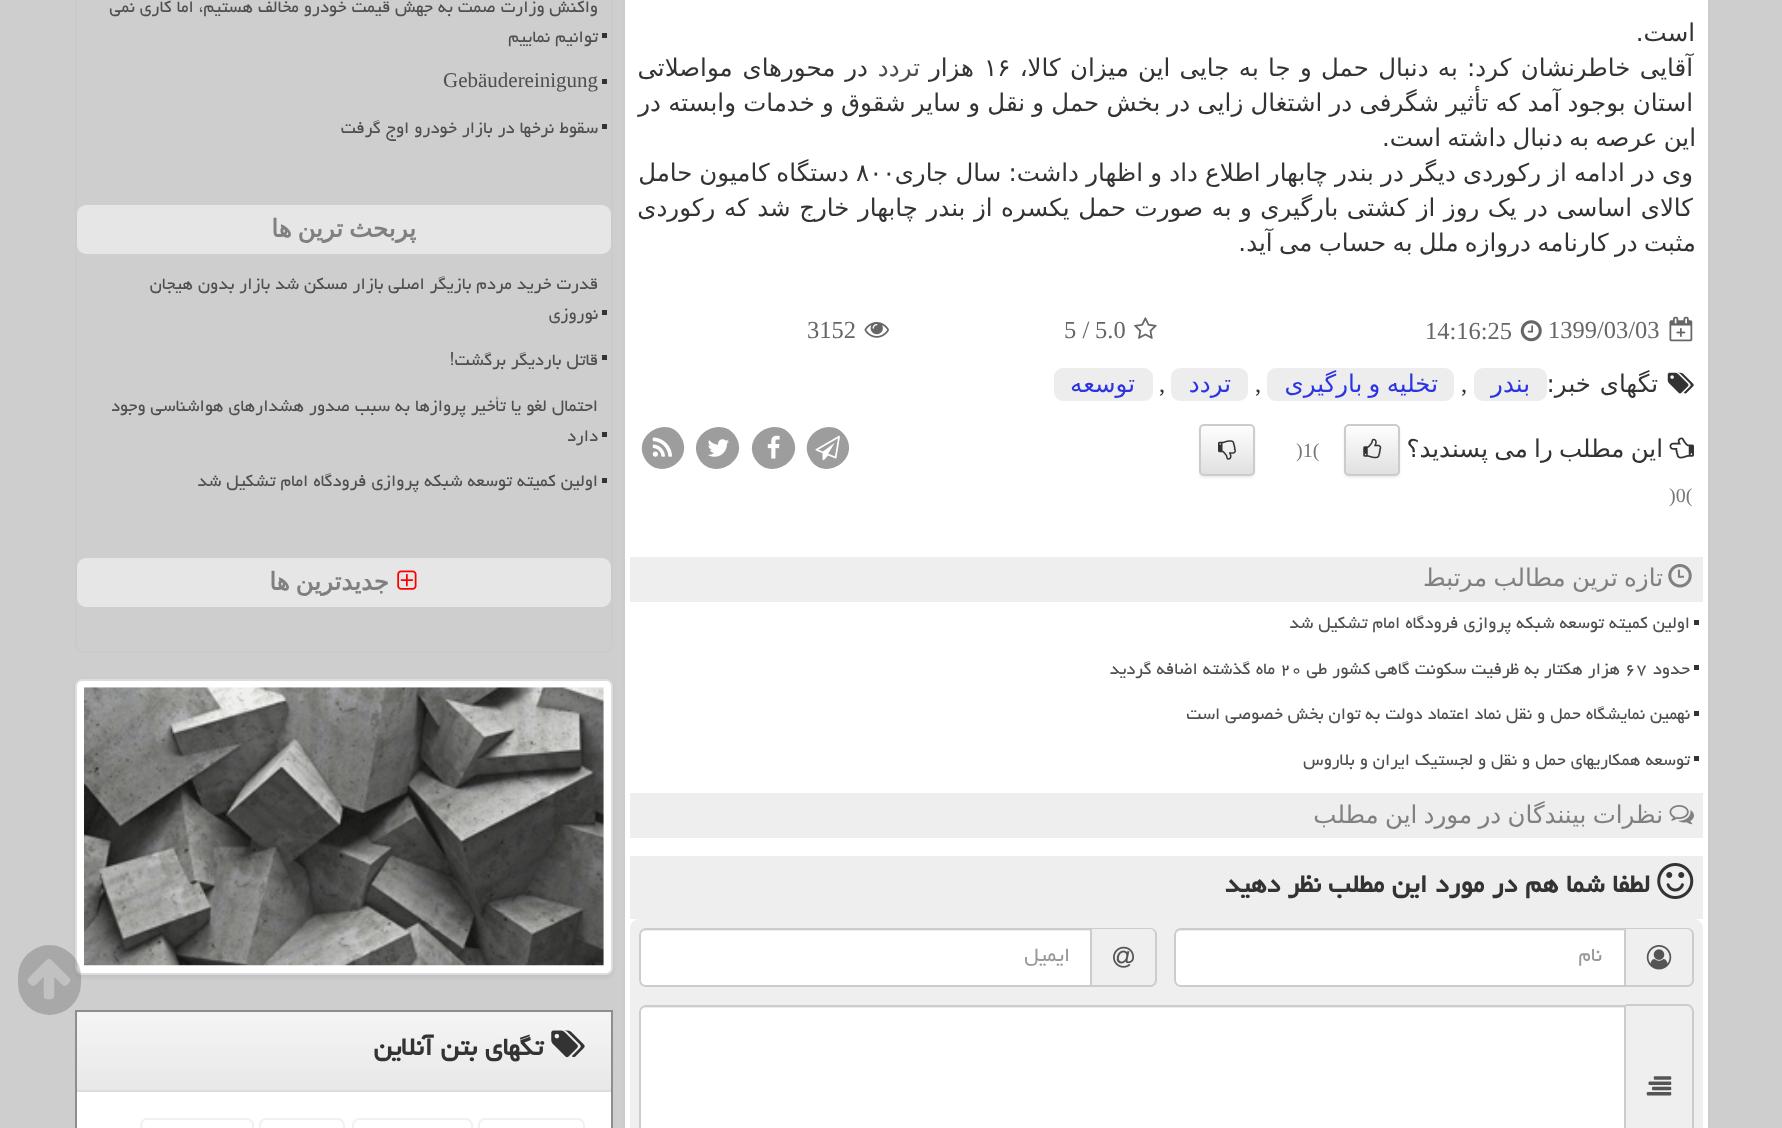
<svg xmlns="http://www.w3.org/2000/svg" xmlns:xlink="http://www.w3.org/1999/xlink" width="1782" height="1128" viewBox="0 0 1782 1128">
<style>
.cls-1{font:24.5px DejaVu Sans;direction:rtl;fill:#333333}
.cls-2{font:24.5px DejaVu Sans;fill:#333333}
.cls-3{font:24.5px DejaVu Sans;direction:rtl;fill:#4f4f4f}
.cls-4{font:24.5px Liberation Serif;fill:#666666}
.cls-5{font:24.5px DejaVu Sans;direction:rtl;fill:#2b34e1}
.cls-6{font:24.5px Liberation Serif;fill:#333333}
.cls-7{font:20px Liberation Serif;fill:#777777}
.cls-8{font:24.5px DejaVu Sans;direction:rtl;fill:#808080}
.cls-9{font:21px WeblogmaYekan;direction:rtl;fill:#4f4f4f}
.cls-10{font:21px WeblogmaYekan;fill:#4f4f4f}
.cls-11{font:bold 31.5px WeblogmaYekan;direction:rtl;fill:#333333}
.cls-12{font:24.5px WeblogmaYekan;direction:rtl;fill:#999999}
.cls-13{font:21px Liberation Serif;fill:#4f4f4f}
.cls-14{font:bold 24.5px DejaVu Sans;direction:rtl;fill:#808080}
</style>
<defs>
<clipPath id="clip1"><rect x="1344" y="424" width="56" height="52" rx="5"/></clipPath>
<linearGradient id="g1" gradientUnits="userSpaceOnUse" x1="1372" y1="425" x2="1372" y2="474"><stop offset="0" stop-color="#ffffff"/><stop offset="1" stop-color="#e0e0e0"/></linearGradient>
<clipPath id="clip2"><rect x="1199" y="424" width="56" height="52" rx="5"/></clipPath>
<linearGradient id="g2" gradientUnits="userSpaceOnUse" x1="1227" y1="425" x2="1227" y2="474"><stop offset="0" stop-color="#ffffff"/><stop offset="1" stop-color="#e0e0e0"/></linearGradient>
<linearGradient id="g3" gradientUnits="userSpaceOnUse" x1="344" y1="1012" x2="344" y2="1090"><stop offset="0" stop-color="#f5f5f5"/><stop offset="1" stop-color="#e8e8e8"/></linearGradient>
</defs>
<rect width="100%" height="100%" fill="#cecece"/>
<rect fill="#ffffff" stroke="#cbcbcb" stroke-width="2" x="624" y="-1" width="1085" height="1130"/>
<image xlink:href="image0.png" x="1669" y="316" width="24" height="26"/>
<image xlink:href="image1.png" x="1520" y="320" width="22" height="22"/>
<image xlink:href="image2.png" x="1134" y="317" width="23" height="22"/>
<image xlink:href="image3.png" x="864" y="322" width="25" height="16"/>
<image xlink:href="image4.png" x="1667" y="372" width="27" height="22"/>
<rect fill="#ededed" x="1474" y="368" width="73" height="33" rx="9"/>
<rect fill="#ededed" x="1267" y="368" width="187" height="33" rx="9"/>
<rect fill="#ededed" x="1171" y="368" width="77" height="33" rx="9"/>
<rect fill="#ededed" x="1054" y="368" width="99" height="33" rx="9"/>
<image xlink:href="image5.png" x="1669" y="437" width="25" height="22"/>
<rect fill="#000000" fill-opacity="0.07" filter="blur(1px)" x="1344" y="425" width="56" height="53" rx="5"/>
<g clip-path="url(#clip1)">
<rect fill="url(#g1)" x="1344" y="425" width="56" height="49"/>
</g>
<rect fill="none" stroke="#cccccc" stroke-width="2" x="1345" y="425" width="54" height="50" rx="4"/>
<image xlink:href="image6.png" x="1363" y="438" width="19" height="21"/>
<rect fill="#000000" fill-opacity="0.07" filter="blur(1px)" x="1199" y="425" width="56" height="53" rx="5"/>
<g clip-path="url(#clip2)">
<rect fill="url(#g2)" x="1199" y="425" width="56" height="49"/>
</g>
<rect fill="none" stroke="#cccccc" stroke-width="2" x="1200" y="425" width="54" height="50" rx="4"/>
<image xlink:href="image7.png" x="1218" y="440" width="18" height="20"/>
<path fill="#9d9d9d" d="M846 437C860 461 823 482 810 459C796 435 832 414 846 437Z"/>
<image xlink:href="image8.png" x="815" y="435" width="25" height="26"/>
<path fill="#9d9d9d" d="M792 437C806 461 769 482 755 459C741 435 778 414 792 437Z"/>
<image xlink:href="image9.png" x="767" y="435" width="13" height="24"/>
<path fill="#9d9d9d" d="M736 437C750 461 713 482 699 459C685 435 722 414 736 437Z"/>
<image xlink:href="image10.png" x="708" y="439" width="21" height="18"/>
<path fill="#9d9d9d" d="M681 437C695 461 659 482 645 459C631 435 668 414 681 437Z"/>
<image xlink:href="image11.png" x="652" y="437" width="20" height="20"/>
<rect fill="#eeeeee" x="630" y="557" width="1073" height="45"/>
<image xlink:href="image12.png" x="1668" y="564" width="24" height="24"/>
<rect fill="#333333" x="1694" y="620" width="5" height="5"/>
<rect fill="#333333" x="1694" y="665" width="5" height="5"/>
<rect fill="#333333" x="1694" y="711" width="5" height="5"/>
<rect fill="#333333" x="1694" y="756" width="5" height="5"/>
<rect fill="#eeeeee" x="630" y="793" width="1073" height="45"/>
<image xlink:href="image13.png" x="1669" y="805" width="25" height="20"/>
<rect fill="#eeeeee" x="630" y="856" width="1073" height="63"/>
<image xlink:href="image14.png" x="1657" y="863" width="37" height="36"/>
<rect fill="#efefef" x="630" y="919" width="1073" height="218" rx="9"/>
<path fill="#cccccc" fill-rule="evenodd" d="M1626 928H1687C1691 928 1694 931 1694 934V980C1694 984 1691 987 1687 987H1626ZM1626 929H1687C1690 929 1692 932 1692 934V980C1692 983 1690 985 1687 985H1626Z"/>
<image xlink:href="image15.png" x="1646" y="945" width="26" height="25"/>
<path fill="#ffffff" d="M1181 928H1626V987H1181C1177 987 1174 984 1174 980V935C1174 931 1177 928 1181 928Z"/>
<path fill="#ececec" d="M1181 931H1624V929H1181C1177 929 1176 933 1176 936C1176 933 1178 931 1181 931Z"/>
<path fill="none" stroke="#cccccc" stroke-width="2" d="M1181 929H1625V986H1181C1177.5 986 1175 983.5 1175 980V935C1175 931.5 1177.5 929 1181 929Z"/>
<path fill="#cccccc" fill-rule="evenodd" d="M1092 928H1150C1154 928 1157 931 1157 934V980C1157 984 1154 987 1150 987H1092ZM1092 929H1150C1153 929 1155 932 1155 934V980C1155 983 1153 985 1150 985H1092Z"/>
<image xlink:href="image16.png" x="1113" y="946" width="21" height="22"/>
<path fill="#ffffff" d="M646 928H1092V987H646C642 987 639 984 639 980V935C639 931 642 928 646 928Z"/>
<path fill="#ececec" d="M646 931H1090V929H646C644 929 641 931 641 933C642 932 644 931 646 931Z"/>
<path fill="none" stroke="#cccccc" stroke-width="2" d="M646 929H1091V986H646C642.5 986 640 983.5 640 980V935C640 931.5 642.5 929 646 929Z"/>
<path fill="#cccccc" fill-rule="evenodd" d="M1626 1004H1687C1691 1004 1694 1008 1694 1012V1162C1694 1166 1691 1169 1687 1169H1626ZM1626 1006H1687C1690 1006 1692 1009 1692 1012V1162C1692 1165 1690 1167 1687 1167H1626Z"/>
<image xlink:href="image17.png" x="1646" y="1076" width="26" height="20"/>
<path fill="#ffffff" d="M646 1005H1626V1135H646C642 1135 639 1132 639 1128V1012C639 1008 642 1005 646 1005Z"/>
<path fill="#ececec" d="M646 1008H1624V1006H646C644 1006 641 1008 641 1010C642 1009 644 1008 646 1008Z"/>
<path fill="none" stroke="#cccccc" stroke-width="2" d="M646 1006H1625V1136H646C642.5 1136 640 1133.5 640 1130V1012C640 1008.5 642.5 1006 646 1006Z"/>
<rect fill="none" stroke="#cbcbcb" stroke-width="2" x="76" y="-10" width="536" height="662" rx="8"/>
<rect fill="#333333" x="602" y="33" width="5" height="5"/>
<rect fill="#333333" x="602" y="79" width="5" height="5"/>
<rect fill="#333333" x="602" y="124" width="5" height="5"/>
<rect fill="#e6e6e6" x="77" y="205" width="534" height="49" rx="9"/>
<rect fill="#333333" x="602" y="310" width="5" height="5"/>
<rect fill="#333333" x="602" y="355" width="5" height="5"/>
<rect fill="#333333" x="602" y="432" width="5" height="5"/>
<rect fill="#333333" x="602" y="478" width="5" height="5"/>
<rect fill="#e6e6e6" x="77" y="558" width="534" height="49" rx="9"/>
<image xlink:href="image18.png" x="397" y="570" width="20" height="20"/>
<rect fill="#000000" fill-opacity="0.07" filter="blur(2px)" x="75" y="681" width="538" height="296" rx="7"/>
<rect fill="#ffffff" stroke="#dddddd" stroke-width="2" x="76" y="680" width="536" height="294" rx="6"/>
<image xlink:href="image19.png" x="84" y="687" width="520" height="279"/>
<rect fill="#ffffff" x="77" y="1092" width="534" height="36"/>
<rect fill="none" stroke="#8e8e8e" stroke-width="2" x="76" y="1011" width="536" height="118"/>
<rect fill="url(#g3)" x="77" y="1012" width="534" height="78"/>
<rect fill="#dddddd" x="77" y="1090" width="534" height="2"/>
<image xlink:href="image20.png" x="551" y="1030" width="34" height="28"/>
<rect fill="none" stroke="#f1f1f1" stroke-width="2" x="479" y="1119" width="105" height="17" rx="6"/>
<rect fill="none" stroke="#f1f1f1" stroke-width="2" x="353" y="1119" width="119" height="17" rx="6"/>
<rect fill="none" stroke="#f1f1f1" stroke-width="2" x="260" y="1119" width="84" height="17" rx="6"/>
<rect fill="none" stroke="#f1f1f1" stroke-width="2" x="141" y="1119" width="112" height="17" rx="6"/>
<rect fill="#000000" fill-opacity="0.18" x="18" y="945" width="63" height="70" rx="31.5"/>
<image xlink:href="image21.png" x="27" y="959" width="44" height="41"/>
<text class="cls-1" x="1695" y="41">است.</text>
<text class="cls-1" x="1693" y="76" word-spacing="1.5">آقایی خاطرنشان کرد: به دنبال حمل و جا به جایی این میزان کالا،</text>
<text class="cls-2" x="984" y="76">۱۶</text>
<text class="cls-1" x="974" y="76">هزار</text>
<text class="cls-3" x="920" y="76">تردد</text>
<text class="cls-1" x="868" y="76" word-spacing="2">در محورهای مواصلاتی</text>
<text class="cls-1" x="1693" y="111" word-spacing="-0.6">استان بوجود آمد که تأثیر شگرفی در اشتغال زایی در بخش حمل و نقل و سایر شقوق و خدمات وابسته در</text>
<text class="cls-1" x="1696" y="146" word-spacing="-1.5">این عرصه به دنبال داشته است.</text>
<text class="cls-1" x="1693" y="181" word-spacing="-0.6">وی در ادامه از رکوردی دیگر در بندر چابهار اطلاع داد و اظهار داشت: سال جاری</text>
<text class="cls-2" x="856" y="181">۸۰۰</text>
<text class="cls-1" x="849" y="181" word-spacing="-1">دستگاه کامیون حامل</text>
<text class="cls-1" x="1693" y="216" word-spacing="0.75">کالای اساسی در یک روز از کشتی بارگیری و به صورت حمل یکسره از بندر چابهار خارج شد که رکوردی</text>
<text class="cls-1" x="1696" y="251" word-spacing="-1.5">مثبت در کارنامه دروازه ملل به حساب می آید.</text>
<text class="cls-4" x="1548" y="338">1399/03/03</text>
<text class="cls-4" x="1425" y="339">14:16:25</text>
<text class="cls-4" x="1095" y="338">5.0</text>
<text class="cls-4" x="1064" y="338">5 /</text>
<text class="cls-4" x="807" y="338">3152</text>
<text class="cls-1" x="1658" y="392" word-spacing="1">تگهای خبر:</text>
<text class="cls-5" x="1530" y="392">بندر</text>
<text class="cls-6" x="1461" y="392">,</text>
<text class="cls-5" x="1438" y="392" word-spacing="-1.5">تخلیه و بارگیری</text>
<text class="cls-6" x="1255" y="392">,</text>
<text class="cls-5" x="1231" y="392">تردد</text>
<text class="cls-6" x="1159" y="392">,</text>
<text class="cls-5" x="1135" y="392">توسعه</text>
<text class="cls-1" x="1663" y="457" word-spacing="-1.5">این مطلب را می پسندید؟</text>
<text class="cls-7" x="1296" y="457">)1(</text>
<text class="cls-7" x="1669" y="502">)0(</text>
<text class="cls-8" x="1663" y="586" word-spacing="-1.5">تازه ترین مطالب مرتبط</text>
<text class="cls-9" x="1690" y="628">اولین کمیته توسعه شبکه پروازی فرودگاه امام تشکیل شد</text>
<text class="cls-9" x="1690" y="674">حدود</text>
<text class="cls-10" x="1625" y="674">۶۷</text>
<text class="cls-9" x="1620" y="674">هزار هکتار به ظرفیت سکونت گاهی کشور طی</text>
<text class="cls-10" x="1280" y="674">۲۰</text>
<text class="cls-9" x="1275" y="674">ماه گذشته اضافه گردید</text>
<text class="cls-9" x="1690" y="719">نهمین نمایشگاه حمل و نقل نماد اعتماد دولت به توان بخش خصوصی است</text>
<text class="cls-9" x="1690" y="765">توسعه همکاریهای حمل و نقل و لجستیک ایران و بلاروس</text>
<text class="cls-8" x="1663" y="823" word-spacing="-1.5">نظرات بینندگان در مورد این مطلب</text>
<text class="cls-11" x="1650" y="892">لطفا شما هم</text>
<text class="cls-11" x="1517" y="892">در مورد این مطلب</text>
<text class="cls-11" x="1321" y="892">نظر دهید</text>
<text class="cls-12" x="1602" y="961">نام</text>
<text class="cls-12" x="1070" y="961">ایمیل</text>
<text class="cls-9"><tspan x="598" y="12">واکنش وزارت صمت به جهش قیمت خودرو مخالف هستیم، اما کاری نمی</tspan><tspan x="598" y="42">توانیم نماییم</tspan></text>
<text class="cls-13" x="443" y="87">Gebäudereinigung</text>
<text class="cls-9" x="598" y="133">سقوط نرخها در بازار خودرو اوج گرفت</text>
<text class="cls-14" x="416" y="237" word-spacing="-2">پربحث ترین ها</text>
<text class="cls-9"><tspan x="598" y="289">قدرت خرید مردم بازیگر اصلی بازار مسکن شد بازار بدون هیجان</tspan><tspan x="598" y="319">نوروزی</tspan></text>
<text class="cls-9" x="598" y="365">قاتل باردیگر برگشت!</text>
<text class="cls-9"><tspan x="598" y="411">احتمال لغو یا تأخیر پروازها به سبب صدور هشدارهای هواشناسی وجود</tspan><tspan x="598" y="441">دارد</tspan></text>
<text class="cls-9" x="598" y="486">اولین کمیته توسعه شبکه پروازی فرودگاه امام تشکیل شد</text>
<text class="cls-14" x="389" y="590" word-spacing="-2">جدیدترین ها</text>
<text class="cls-11" x="543" y="1055">تگهای بتن آنلاین</text>
</svg>
